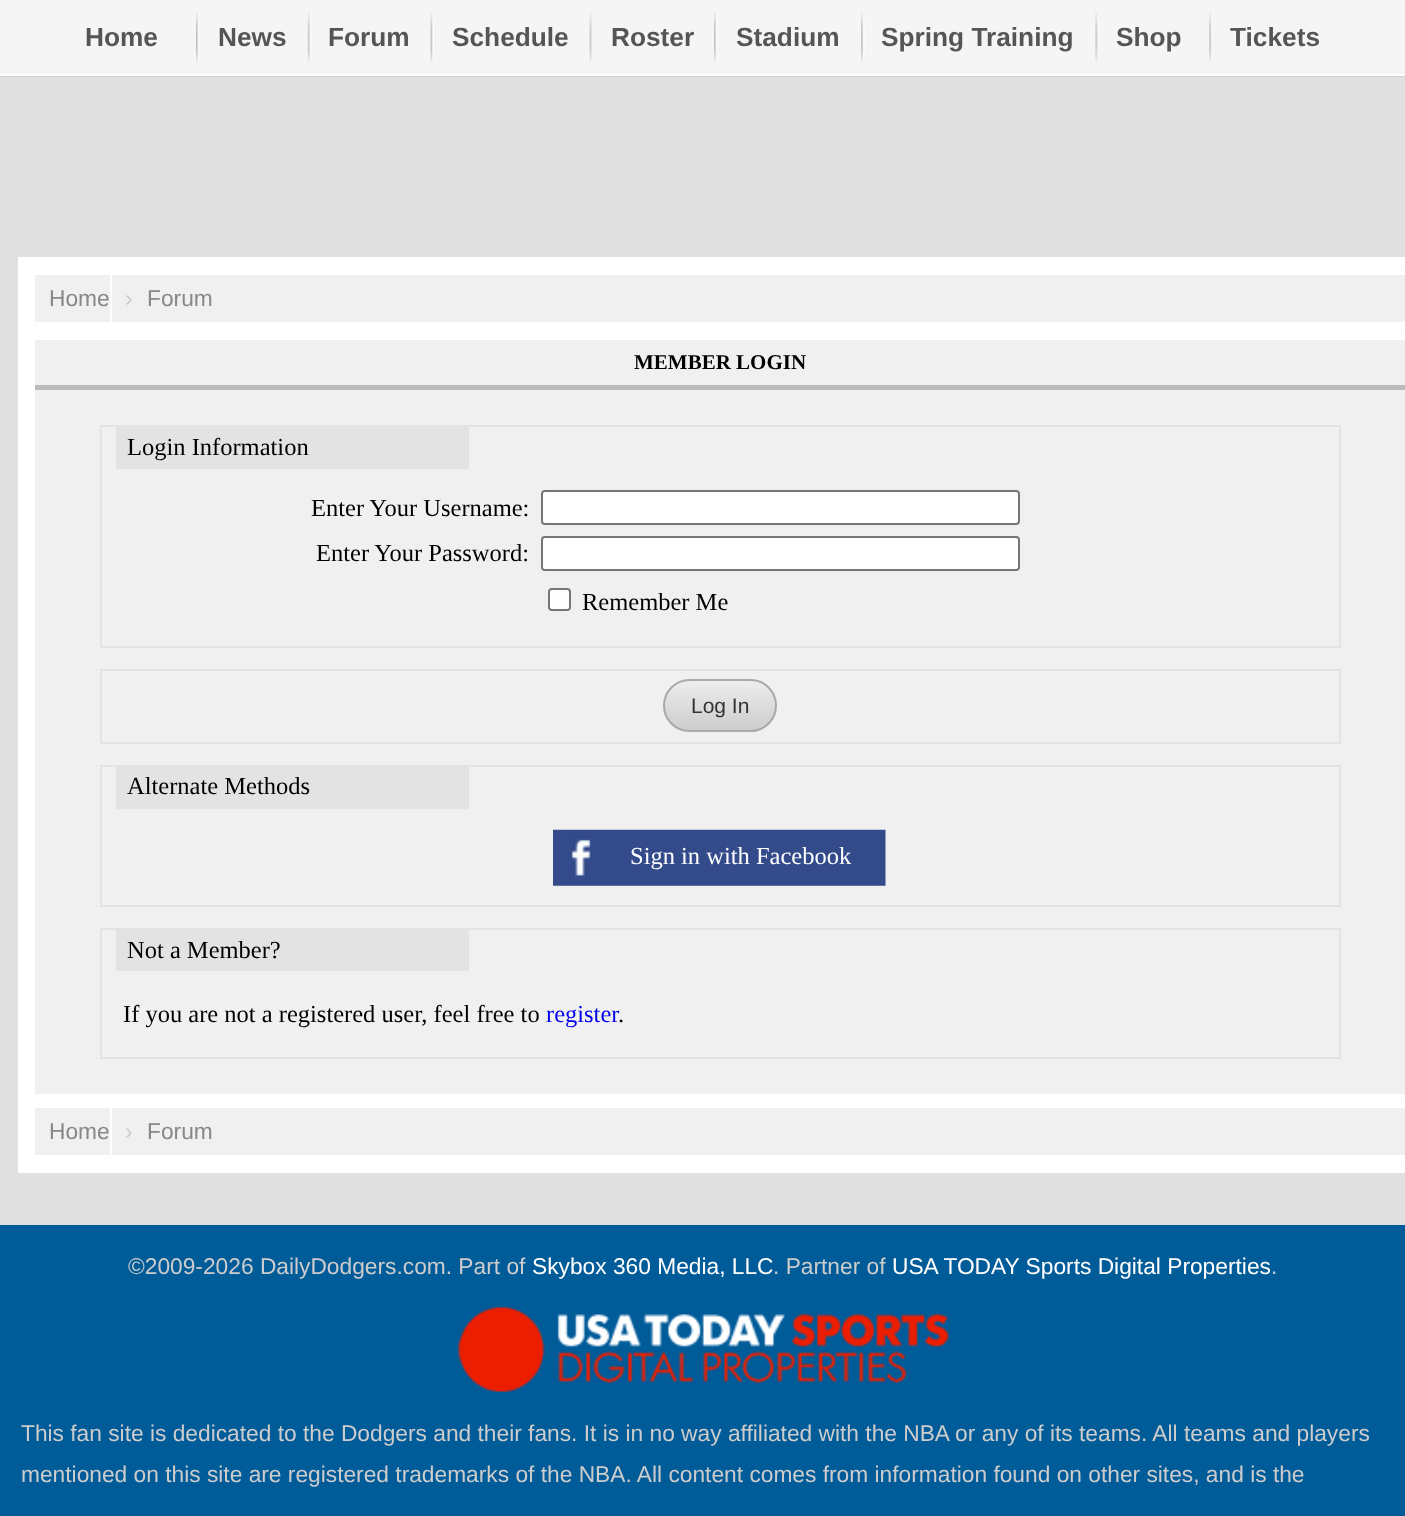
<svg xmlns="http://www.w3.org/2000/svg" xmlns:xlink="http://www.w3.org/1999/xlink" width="1405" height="1516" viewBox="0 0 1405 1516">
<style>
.cls-1{font:bold 26.25px Liberation Sans;fill:#555555}
.cls-2{font:22.75px Liberation Sans;fill:#888888}
.cls-3{font:22.75px Liberation Sans;fill:#cccccc}
.cls-4{font:bold 21px Liberation Serif;fill:#000000}
.cls-5{font:24.5px Liberation Serif;fill:#000000}
.cls-6{font:21px Liberation Sans;fill:#333333}
.cls-7{font:24.5px Liberation Serif;fill:#ffffff}
.cls-8{font:24.5px Liberation Serif;fill:#0000ee}
.cls-9{font:22.75px Liberation Sans;fill:#ffffff}
</style>
<defs>
<clipPath id="clip1"><rect x="663" y="679" width="114" height="53" rx="26.5"/></clipPath>
<linearGradient id="g1" gradientUnits="userSpaceOnUse" x1="720" y1="681" x2="720" y2="730"><stop offset="0" stop-color="#ededed"/><stop offset="1" stop-color="#cdcdcd"/></linearGradient>
</defs>
<rect width="100%" height="100%" fill="#e0e0e0"/>
<rect fill="#f5f5f5" x="0" y="0" width="1405" height="74"/>
<rect fill="#d0d0d0" x="0" y="76" width="1405" height="1"/>
<rect fill="#ffffff" x="0" y="74" width="1405" height="2"/>
<image xlink:href="image0.png" x="196" y="11" width="4" height="52"/>
<image xlink:href="image1.png" x="307" y="11" width="5" height="52"/>
<image xlink:href="image2.png" x="430" y="11" width="4" height="52"/>
<image xlink:href="image3.png" x="589" y="11" width="3" height="52"/>
<image xlink:href="image4.png" x="714" y="11" width="4" height="52"/>
<image xlink:href="image0.png" x="861" y="11" width="4" height="52"/>
<image xlink:href="image5.png" x="1095" y="11" width="4" height="52"/>
<image xlink:href="image6.png" x="1209" y="11" width="4" height="52"/>
<rect fill="#ffffff" x="18" y="257" width="1387" height="916"/>
<rect fill="#f0f0f0" x="35" y="275" width="1370" height="47"/>
<rect fill="#ffffff" x="110" y="275" width="2" height="47"/>
<rect fill="#f0f0f0" x="35" y="340" width="1370" height="45"/>
<rect fill="#bbbbbb" x="35" y="385" width="1370" height="5"/>
<rect fill="#f0f0f0" x="35" y="390" width="1370" height="704"/>
<rect fill="none" stroke="#e3e3e3" stroke-width="2" x="101" y="426" width="1239" height="221"/>
<rect fill="#e3e3e3" x="116" y="427" width="353" height="42"/>
<rect fill="#ffffff" stroke="#767676" stroke-width="2" x="542" y="491" width="477" height="33" rx="3"/>
<rect fill="#ffffff" stroke="#767676" stroke-width="2" x="542" y="537" width="477" height="33" rx="3"/>
<rect fill="#ffffff" stroke="#767676" stroke-width="2" x="549" y="589" width="21" height="21" rx="3"/>
<rect fill="none" stroke="#e3e3e3" stroke-width="2" x="101" y="670" width="1239" height="73"/>
<g clip-path="url(#clip1)">
<rect fill="url(#g1)" x="663" y="681" width="114" height="49"/>
</g>
<rect fill="none" stroke="#aaaaaa" stroke-width="2" x="664" y="680" width="112" height="51" rx="25.5"/>
<rect fill="none" stroke="#e3e3e3" stroke-width="2" x="101" y="766" width="1239" height="140"/>
<rect fill="#e3e3e3" x="116" y="767" width="353" height="42"/>
<image xlink:href="image7.png" x="553" y="829" width="333" height="57"/>
<rect fill="none" stroke="#e3e3e3" stroke-width="2" x="101" y="929" width="1239" height="129"/>
<rect fill="#e3e3e3" x="116" y="930" width="353" height="41"/>
<rect fill="#f0f0f0" x="35" y="1108" width="1370" height="47"/>
<rect fill="#ffffff" x="110" y="1108" width="2" height="47"/>
<rect fill="#005b99" x="0" y="1225" width="1405" height="291"/>
<image xlink:href="image8.png" x="458" y="1307" width="491" height="85"/>
<text class="cls-1" x="85" y="46">Home</text>
<text class="cls-1" x="218" y="46">News</text>
<text class="cls-1" x="328" y="46">Forum</text>
<text class="cls-1" x="452" y="46">Schedule</text>
<text class="cls-1" x="611" y="46">Roster</text>
<text class="cls-1" x="736" y="46">Stadium</text>
<text class="cls-1" x="881" y="46">Spring Training</text>
<text class="cls-1" x="1116" y="46">Shop</text>
<text class="cls-1" x="1230" y="46">Tickets</text>
<text class="cls-2" x="49" y="306">Home</text>
<text class="cls-3" x="125" y="306">›</text>
<text class="cls-2" x="147" y="306">Forum</text>
<text class="cls-4" x="634" y="369">MEMBER LOGIN</text>
<text class="cls-5" x="127" y="455">Login Information</text>
<text class="cls-5" x="311" y="516">Enter Your Username:</text>
<text class="cls-5" x="316" y="561">Enter Your Password:</text>
<text class="cls-5" x="582" y="610">Remember Me</text>
<text class="cls-6" x="691" y="713">Log In</text>
<text class="cls-5" x="127" y="794">Alternate Methods</text>
<text class="cls-7" x="630" y="864">Sign in with Facebook</text>
<text class="cls-5" x="127" y="958">Not a Member?</text>
<text class="cls-5" x="123" y="1022">If you are not a registered user, feel free to</text>
<text class="cls-8" x="546" y="1022">register</text>
<text class="cls-5" x="618" y="1022">.</text>
<text class="cls-2" x="49" y="1139">Home</text>
<text class="cls-3" x="125" y="1139">›</text>
<text class="cls-2" x="147" y="1139">Forum</text>
<text class="cls-3" x="128" y="1274">©2009-2026 DailyDodgers.com. Part of</text>
<text class="cls-9" x="532" y="1274">Skybox 360 Media, LLC</text>
<text class="cls-3" x="773" y="1274">. Partner of</text>
<text class="cls-9" x="892" y="1274">USA TODAY Sports Digital Properties</text>
<text class="cls-3" x="1271" y="1274">.</text>
<text class="cls-3"><tspan x="21" y="1441">This fan site is dedicated to the Dodgers and their fans. It is in no way affiliated with the NBA or any of its teams. All teams and players</tspan><tspan x="21" y="1482">mentioned on this site are registered trademarks of the NBA. All content comes from information found on other sites, and is the</tspan></text>
</svg>
